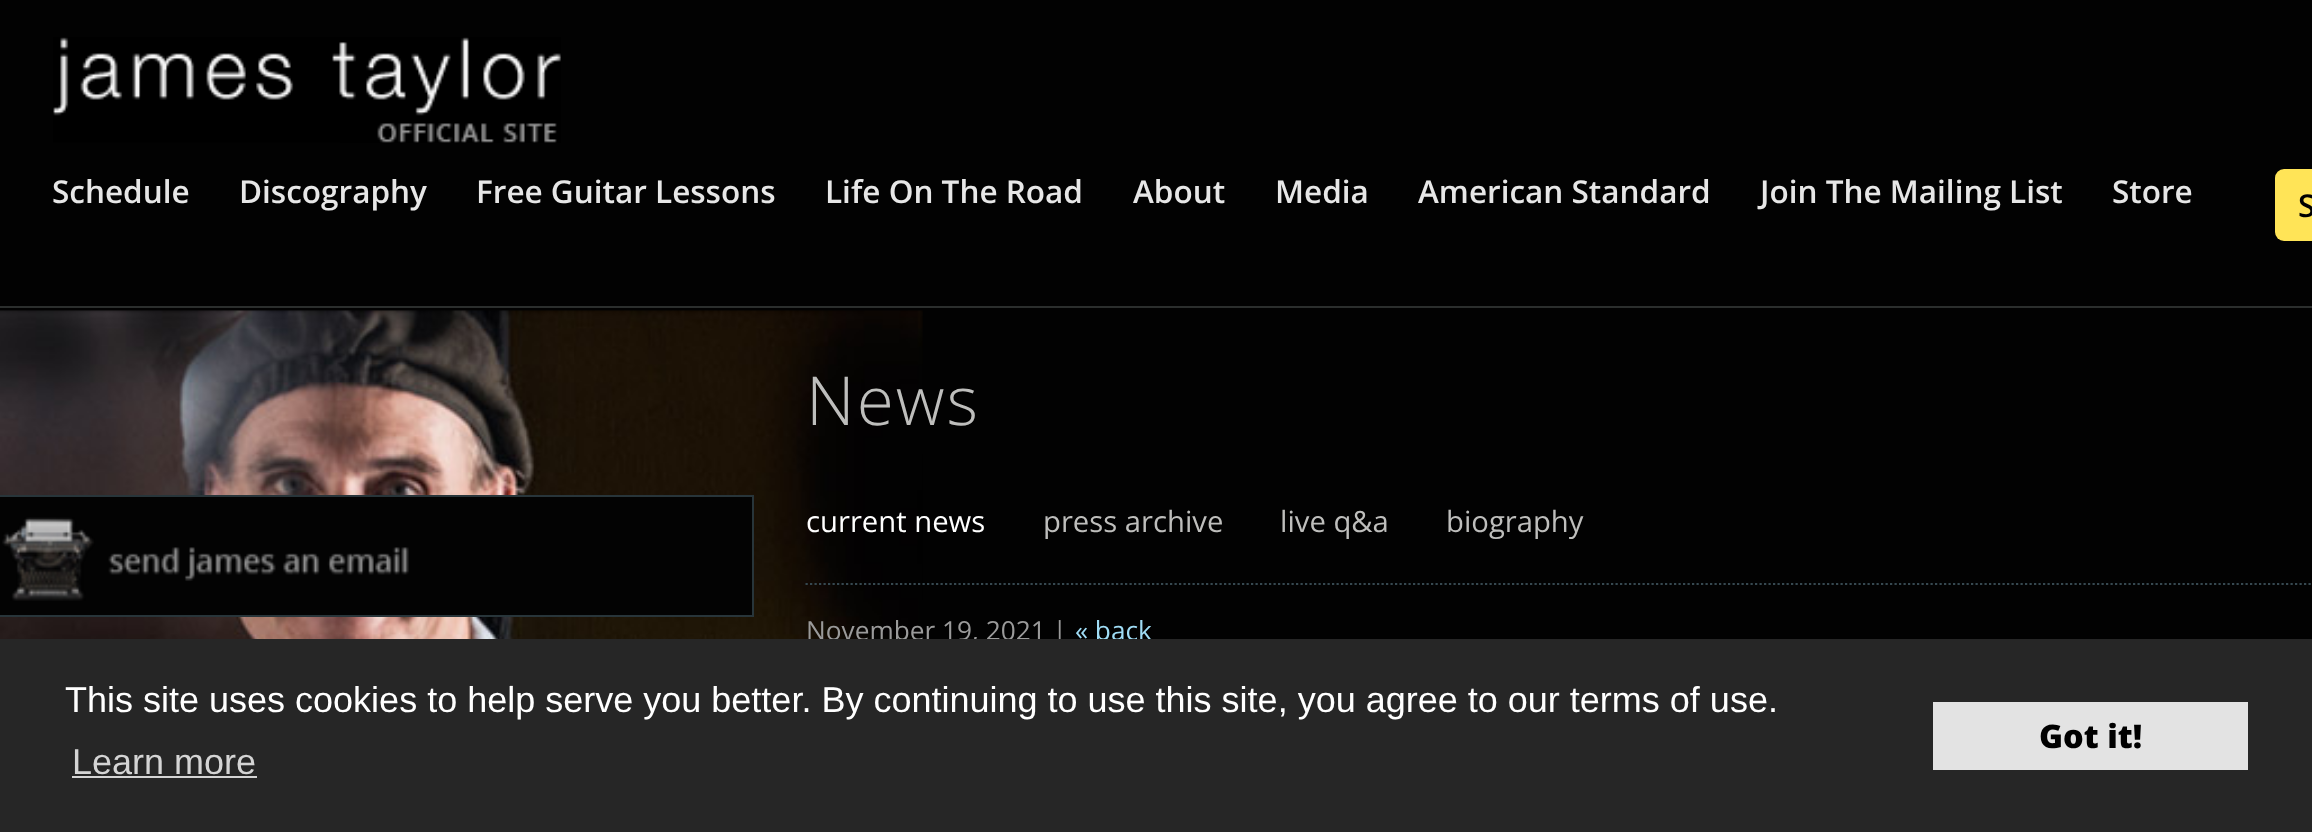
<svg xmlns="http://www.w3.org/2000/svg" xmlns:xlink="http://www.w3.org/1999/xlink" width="2312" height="832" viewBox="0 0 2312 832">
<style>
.cls-1{font:600 31.5px Open Sans;fill:#e7e7e7}
.cls-2{font:600 31.5px Open Sans;fill:#000000}
.cls-3{font:300 67.5px Open Sans;letter-spacing:2px;fill:#bebebc}
.cls-4{font:29.25px Open Sans;fill:#ffffff}
.cls-5{font:29.25px Open Sans;fill:#bebebc}
.cls-6{font:26.25px Open Sans;fill:#9a9a9a}
.cls-7{font:26.25px Open Sans;fill:#9fdcf5}
.cls-8{font:36px Liberation Sans;fill:#ffffff}
.cls-9{font:36px Liberation Sans;fill:#d4d4d4}
.cls-10{font:800 32.5px Open Sans;fill:#000000}
</style>
<rect width="100%" height="100%" fill="#020202"/>
<image xlink:href="image0.png" x="0" y="310" width="923" height="329"/>
<rect fill="#2b2e2d" x="0" y="306" width="2312" height="2"/>
<image xlink:href="image1.png" x="53" y="37" width="508" height="106"/>
<rect fill="#ffe457" x="2275" y="169" width="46" height="72" rx="9"/>
<rect fill="#030303" stroke="#28353a" stroke-width="2" x="-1" y="496" width="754" height="120"/>
<image xlink:href="image2.png" x="2" y="517" width="407" height="84"/>
<path fill="none" stroke="#364850" stroke-width="2.2" stroke-dasharray="2.25 2.25" d="M805.5 584H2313"/>
<text class="cls-1" x="52" y="203">Schedule</text>
<text class="cls-1" x="239" y="203">Discography</text>
<text class="cls-1" x="476" y="203">Free Guitar Lessons</text>
<text class="cls-1" x="825" y="203">Life On The Road</text>
<text class="cls-1" x="1133" y="203">About</text>
<text class="cls-1" x="1275" y="203">Media</text>
<text class="cls-1" x="1418" y="203">American Standard</text>
<text class="cls-1" x="1760" y="203">Join The Mailing List</text>
<text class="cls-1" x="2112" y="203">Store</text>
<text class="cls-2" x="2298" y="217">S</text>
<text class="cls-3" x="806" y="425">News</text>
<text class="cls-4" x="806" y="532">current news</text>
<text class="cls-5" x="1043" y="532">press archive</text>
<text class="cls-5" x="1280" y="532">live q&amp;a</text>
<text class="cls-5" x="1446" y="532">biography</text>
<text class="cls-6" x="806" y="640">November 19, 2021 |</text>
<text class="cls-7" x="1075" y="640">« back</text>
<rect fill="#262626" x="0" y="639" width="2312" height="193"/>
<text class="cls-8" x="65" y="712">This site uses cookies to help serve you better. By continuing to use this site, you agree to our terms of use.</text>
<text class="cls-9" x="72" y="774">Learn more</text>
<rect fill="#d4d4d4" x="72" y="776" width="185" height="2"/>
<rect fill="#e3e3e3" x="1933" y="702" width="315" height="68"/>
<text class="cls-10" x="2039" y="748">Got it!</text>
</svg>
